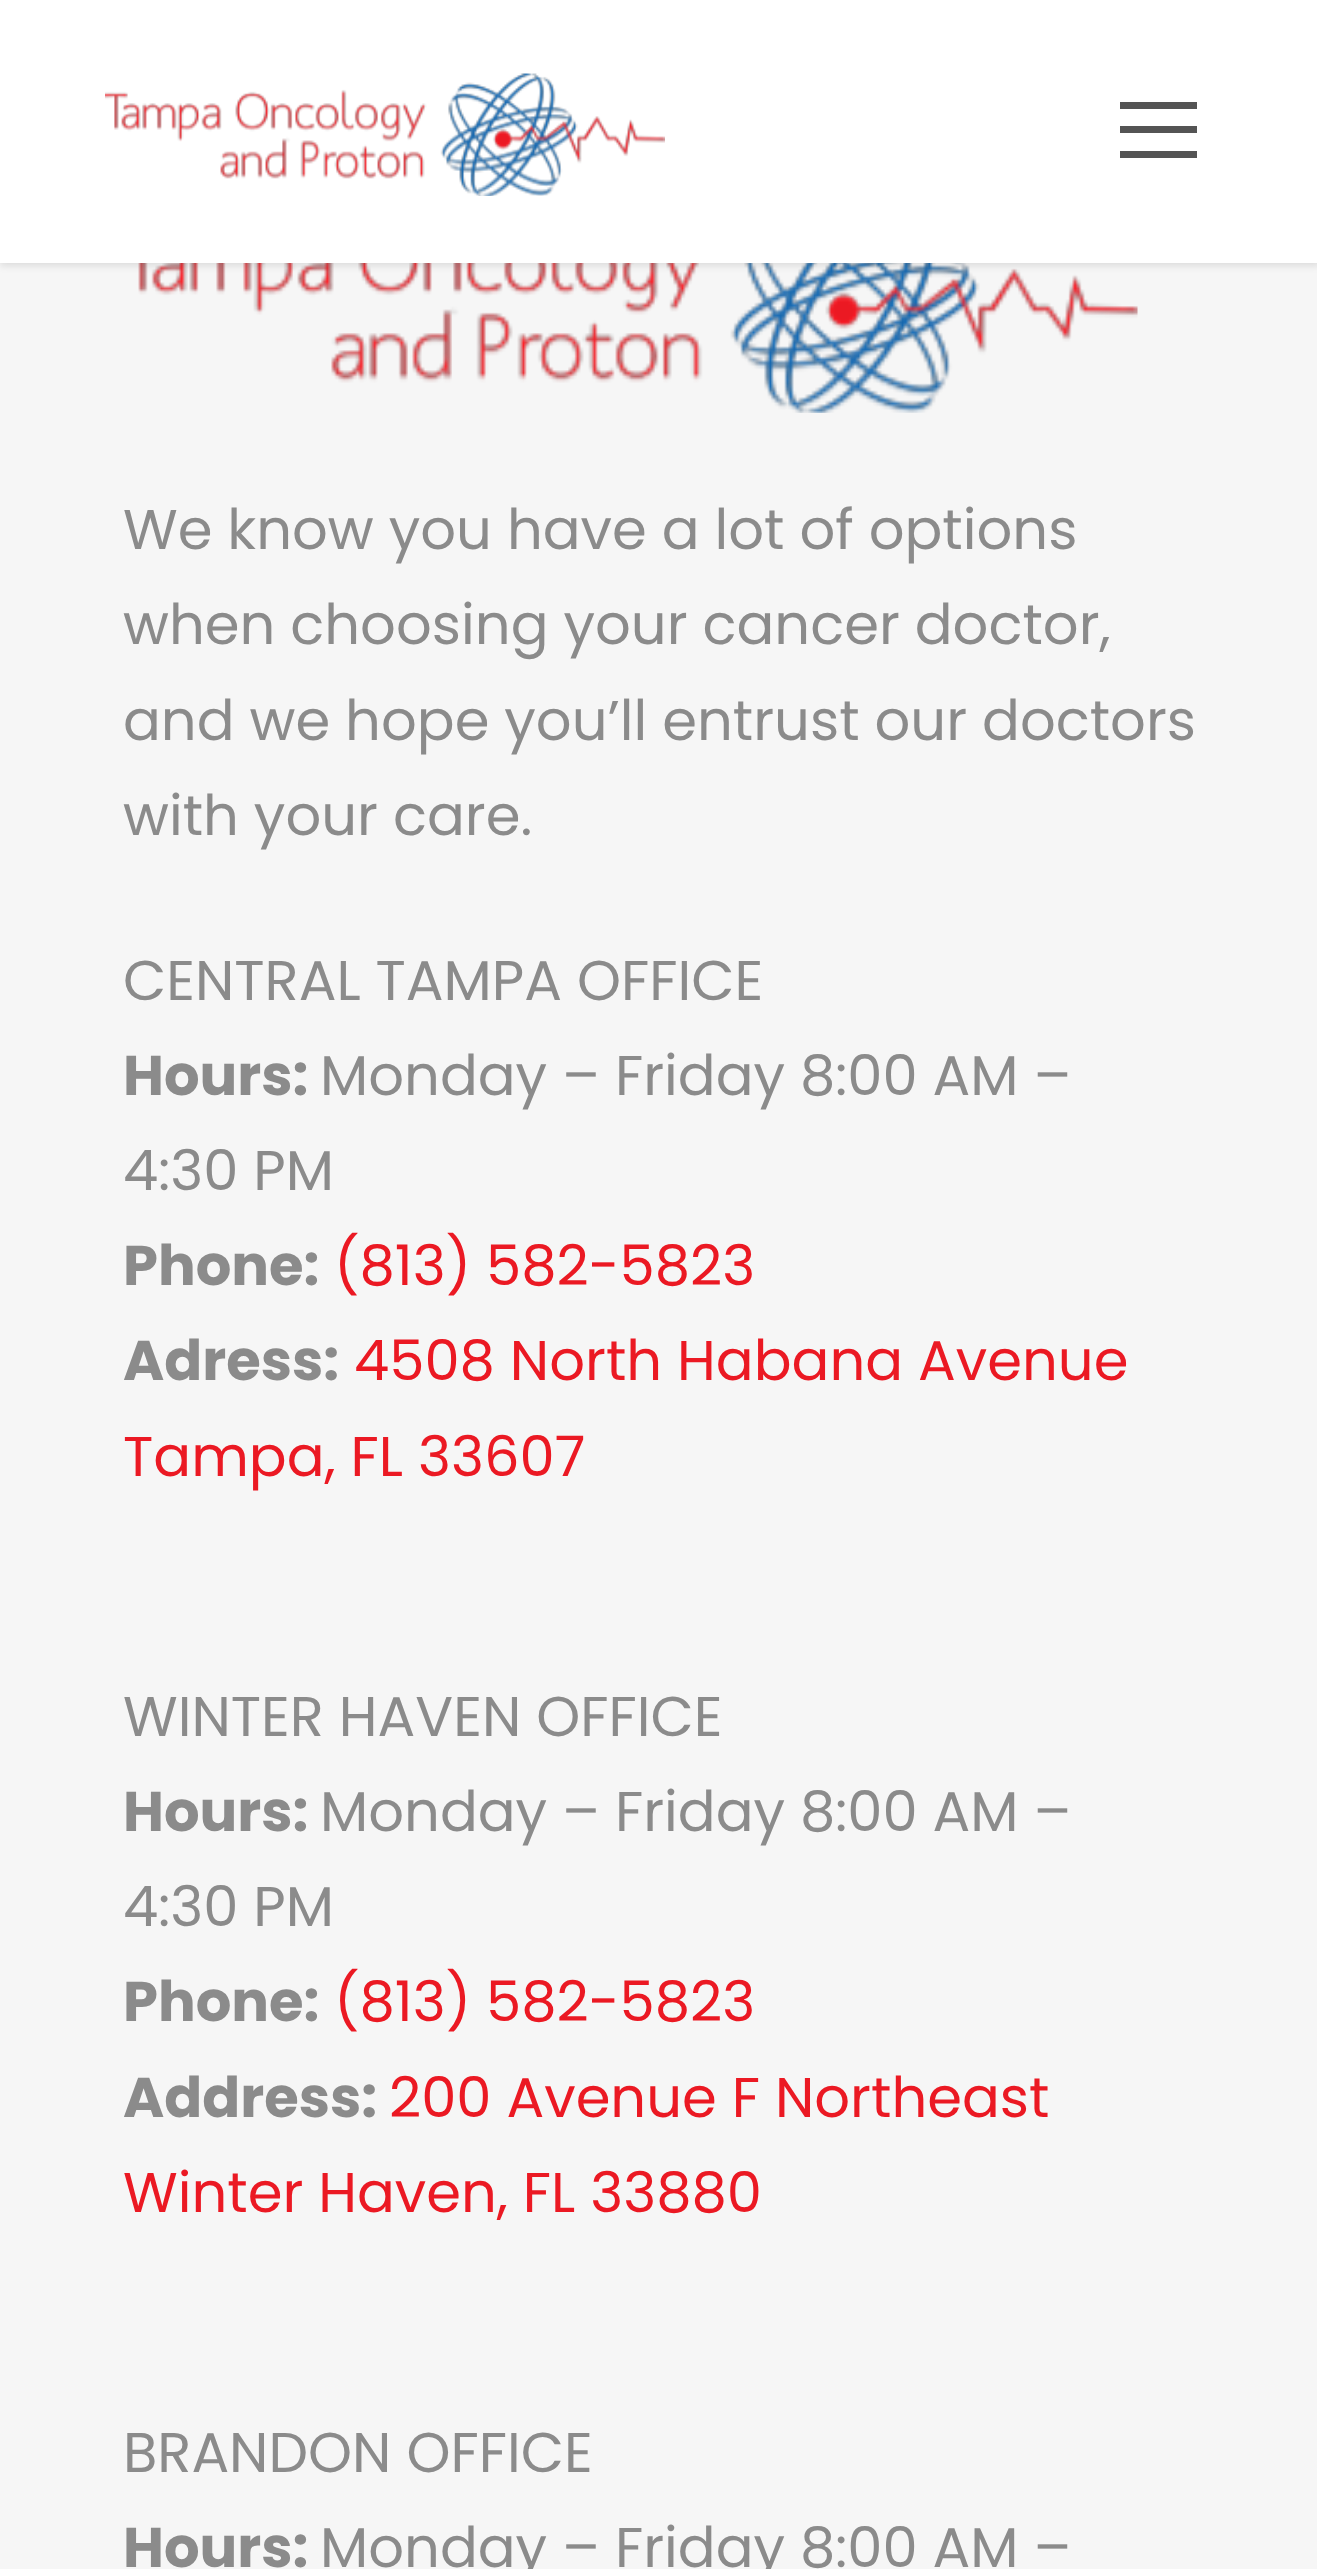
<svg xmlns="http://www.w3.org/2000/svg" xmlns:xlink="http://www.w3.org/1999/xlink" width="1317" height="2569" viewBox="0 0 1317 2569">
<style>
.cls-1{font:56px Poppins;fill:#8b8b8b}
.cls-2{font:bold 56px Poppins;fill:#8b8b8b}
.cls-3{font:56px Poppins;fill:#eb1923}
</style>
<rect width="100%" height="100%" fill="#f6f6f6"/>
<image xlink:href="image1.png" x="138" y="263" width="1000" height="150"/>
<rect fill="#000000" fill-opacity="0.1" filter="blur(3.5px)" x="0" y="4" width="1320" height="262"/>
<rect fill="#ffffff" x="0" y="0" width="1317" height="263"/>
<image xlink:href="image0.png" x="105" y="73" width="560" height="123"/>
<rect fill="#545454" x="1120" y="102" width="77" height="7"/>
<rect fill="#545454" x="1120" y="126" width="77" height="7"/>
<rect fill="#545454" x="1120" y="151" width="77" height="7"/>
<text class="cls-1"><tspan x="123" y="549">We know you have a lot of options</tspan><tspan x="123" y="644">when choosing your cancer doctor,</tspan><tspan x="123" y="740">and we hope you’ll entrust our doctors</tspan><tspan x="123" y="835">with your care.</tspan></text>
<text class="cls-1" x="123" y="1000">CENTRAL TAMPA OFFICE</text>
<text class="cls-2" x="123" y="1095">Hours:</text>
<text class="cls-1" x="320" y="1095">Monday – Friday 8:00 AM –</text>
<text class="cls-1" x="123" y="1190">4:30 PM</text>
<text class="cls-2" x="123" y="1285">Phone:</text>
<text class="cls-3" x="334" y="1285">(813) 582-5823</text>
<text class="cls-2" x="123" y="1380">Adress:</text>
<text class="cls-3" x="354" y="1380">4508 North Habana Avenue</text>
<text class="cls-3" x="123" y="1476">Tampa, FL 33607</text>
<text class="cls-1" x="123" y="1736">WINTER HAVEN OFFICE</text>
<text class="cls-2" x="123" y="1831">Hours:</text>
<text class="cls-1" x="320" y="1831">Monday – Friday 8:00 AM –</text>
<text class="cls-1" x="123" y="1926">4:30 PM</text>
<text class="cls-2" x="123" y="2021">Phone:</text>
<text class="cls-3" x="334" y="2021">(813) 582-5823</text>
<text class="cls-2" x="123" y="2117">Address:</text>
<text class="cls-3" x="389" y="2117">200 Avenue F Northeast</text>
<text class="cls-3" x="123" y="2212">Winter Haven, FL 33880</text>
<text class="cls-1" x="123" y="2472">BRANDON OFFICE</text>
<text class="cls-2" x="123" y="2567">Hours:</text>
<text class="cls-1" x="320" y="2567">Monday – Friday 8:00 AM –</text>
</svg>
